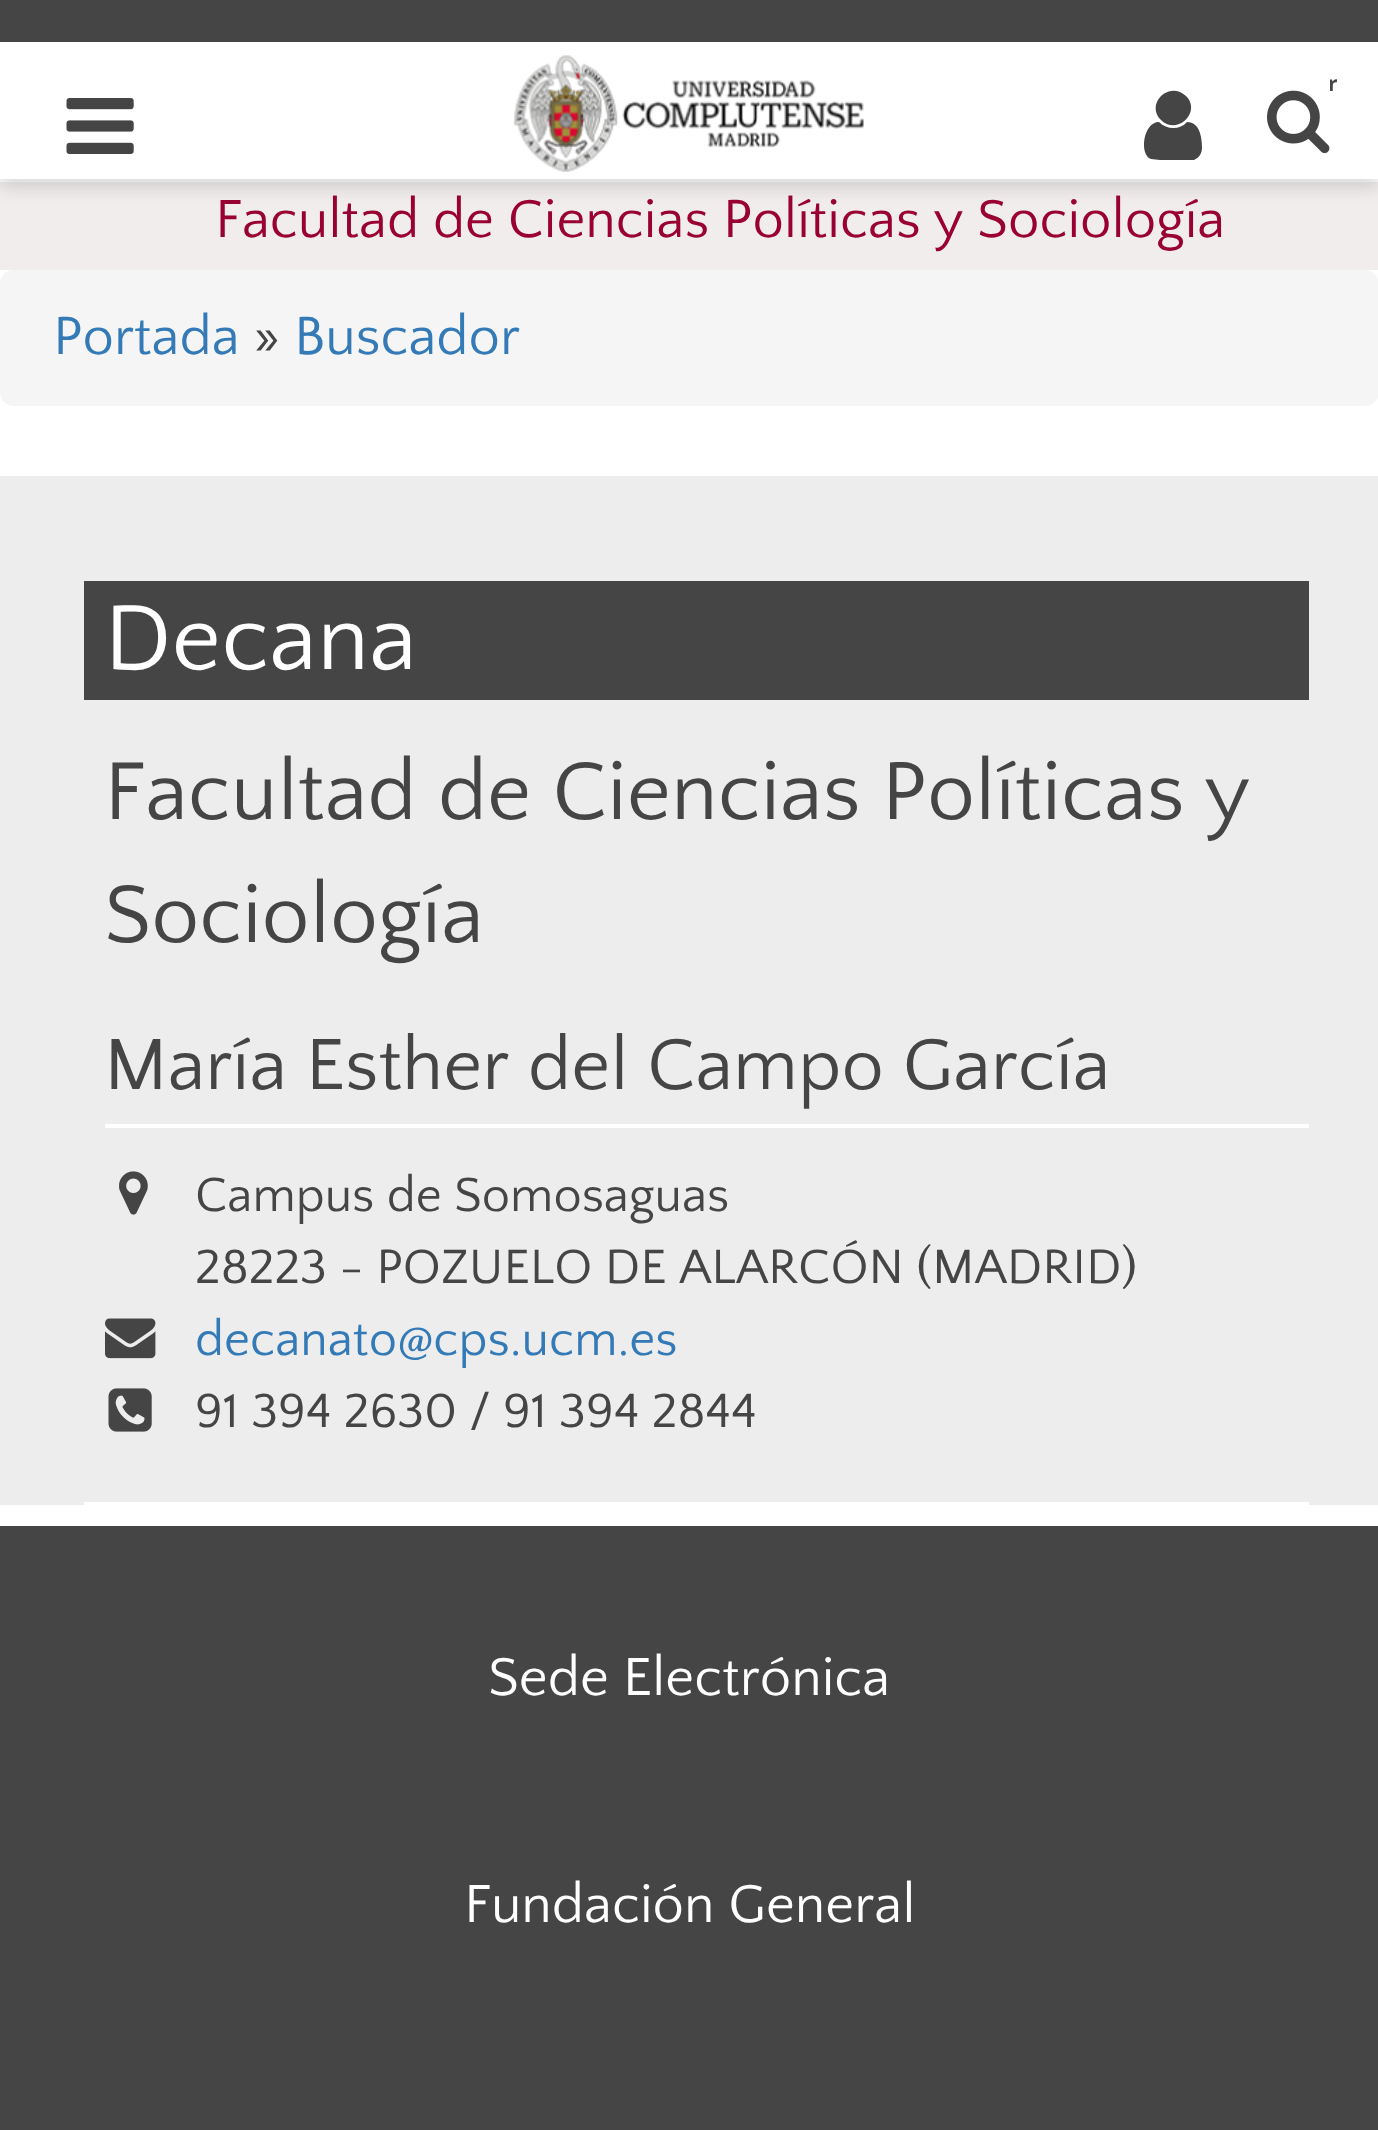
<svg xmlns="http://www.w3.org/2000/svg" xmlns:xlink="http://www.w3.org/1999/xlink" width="1378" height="2130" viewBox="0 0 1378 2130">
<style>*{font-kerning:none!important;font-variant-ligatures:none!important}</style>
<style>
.cls-1{font:bold 21px Noto Sans;fill:#454545}
.cls-2{font:56px Quattrocento Sans;fill:#990033}
.cls-3{font:56px Quattrocento Sans;fill:#337ab7}
.cls-4{font:56px Quattrocento Sans;fill:#454545}
.cls-5{font:96px Quattrocento Sans;fill:#ffffff}
.cls-6{font:85.75px Quattrocento Sans;fill:#454545}
.cls-7{font:75.6px Quattrocento Sans;fill:#454545}
.cls-8{font:50.4px Quattrocento Sans;fill:#454545}
.cls-9{font:50.4px Quattrocento Sans;fill:#337ab7}
.cls-10{font:56px Quattrocento Sans;fill:#ffffff}
</style>
<rect width="100%" height="100%" fill="#ffffff"/>
<rect fill="#f1eded" x="0" y="182" width="1378" height="88"/>
<rect fill="#323232" fill-opacity="0.2" filter="blur(9px)" x="0" y="49" width="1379" height="137"/>
<rect fill="#ffffff" x="0" y="42" width="1378" height="137"/>
<image xlink:href="image0.png" x="66" y="98" width="68" height="56"/>
<rect fill="#454545" x="0" y="0" width="1378" height="42"/>
<path fill="#454545" d="M1202 148C1202 153 1199 158 1194 160H1160L1151 159C1139 155 1143 122 1159 122C1167 130 1180 130 1187 122C1200 122 1202 138 1202 148ZM1186 96C1202 112 1177 136 1161 120C1145 104 1169 80 1186 96Z"/>
<image xlink:href="image2.png" x="514" y="55" width="350" height="117"/>
<rect fill="#f5f5f5" x="0" y="270" width="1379" height="136" rx="14"/>
<rect fill="#ededed" x="0" y="476" width="1378" height="1029"/>
<rect fill="#454545" x="84" y="581" width="1225" height="119"/>
<rect fill="#ffffff" x="84" y="1502" width="1225" height="3"/>
<rect fill="#ffffff" x="105" y="1124" width="1204" height="4"/>
<image xlink:href="image3.png" x="119" y="1171" width="29" height="44"/>
<image xlink:href="image4.png" x="105" y="1318" width="51" height="41"/>
<image xlink:href="image5.png" x="108" y="1388" width="44" height="44"/>
<rect fill="#454545" x="0" y="1526" width="1378" height="604"/>
<text class="cls-1" x="1328" y="91">r</text>
<rect fill="#ffffff" x="1267" y="70" width="63" height="95" rx="7"/>
<image xlink:href="image1.png" x="1267" y="90" width="63" height="64"/>
<text class="cls-2" x="215" y="237">Facultad de Ciencias Políticas y Sociología</text>
<text class="cls-3" x="53" y="354">Portada</text>
<text class="cls-4" x="253" y="354">»</text>
<text class="cls-3" x="294" y="354">Buscador</text>
<text class="cls-5" x="104" y="669">Decana</text>
<text class="cls-6"><tspan x="104" y="819">Facultad de Ciencias Políticas y</tspan><tspan x="104" y="942">Sociología</tspan></text>
<text class="cls-7" x="104" y="1089">María Esther del Campo García</text>
<text class="cls-8"><tspan x="195" y="1211">Campus de Somosaguas</tspan><tspan x="195" y="1283">28223 - POZUELO DE ALARCÓN (MADRID)</tspan></text>
<text class="cls-9" x="195" y="1355">decanato@cps.ucm.es</text>
<text class="cls-8" x="195" y="1427">91 394 2630 / 91 394 2844</text>
<text class="cls-10" x="488" y="1695">Sede Electrónica</text>
<text class="cls-10" x="464" y="1922">Fundación General</text>
</svg>
